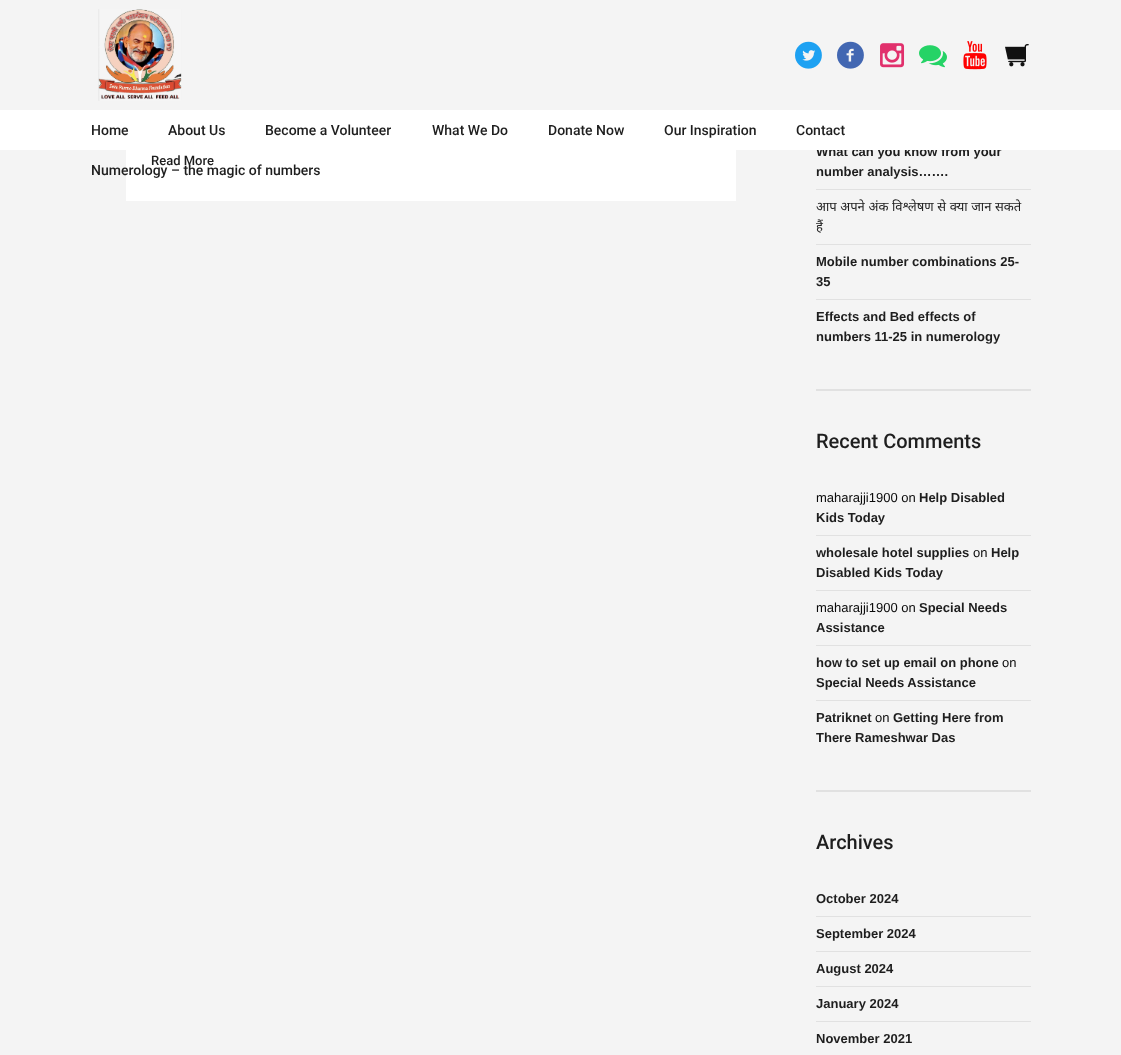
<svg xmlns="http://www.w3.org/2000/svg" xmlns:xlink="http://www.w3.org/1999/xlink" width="1121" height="1055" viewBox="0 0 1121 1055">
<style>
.cls-1{font:500 14px Roboto;fill:#1e1e1e}
.cls-2{font:500 13px Roboto;fill:#1e1e1e}
.cls-3{font:bold 13px Liberation Sans;fill:#1e1e1e}
.cls-4{font:13px Noto Sans;fill:#1e1e1e}
.cls-5{font:500 20px Roboto;fill:#1e1e1e}
.cls-6{font:13px Liberation Sans;fill:#0a0a0a}
</style>
<defs>
<clipPath id="clip1"><rect x="816" y="80" width="215" height="274"/></clipPath>
</defs>
<rect width="100%" height="100%" fill="#f4f4f4"/>
<image xlink:href="image0.png" x="98" y="9" width="84" height="92"/>
<image xlink:href="image1.png" x="795" y="41" width="27" height="28"/>
<image xlink:href="image2.png" x="837" y="41" width="27" height="28"/>
<image xlink:href="image3.png" x="880" y="43" width="25" height="25"/>
<image xlink:href="image4.png" x="919" y="45" width="28" height="23"/>
<image xlink:href="image5.png" x="963" y="41" width="24" height="29"/>
<image xlink:href="image6.png" x="1005" y="44" width="24" height="23"/>
<rect fill="#ffffff" x="126" y="150" width="610" height="51"/>
<rect fill="#e1e1e1" x="816" y="389" width="215" height="2"/>
<rect fill="#e1e1e1" x="816" y="189" width="215" height="1"/>
<rect fill="#e1e1e1" x="816" y="244" width="215" height="1"/>
<rect fill="#e1e1e1" x="816" y="299" width="215" height="1"/>
<rect fill="#e1e1e1" x="816" y="790" width="215" height="2"/>
<rect fill="#e1e1e1" x="816" y="535" width="215" height="1"/>
<rect fill="#e1e1e1" x="816" y="590" width="215" height="1"/>
<rect fill="#e1e1e1" x="816" y="645" width="215" height="1"/>
<rect fill="#e1e1e1" x="816" y="700" width="215" height="1"/>
<rect fill="#e1e1e1" x="816" y="916" width="215" height="1"/>
<rect fill="#e1e1e1" x="816" y="951" width="215" height="1"/>
<rect fill="#e1e1e1" x="816" y="986" width="215" height="1"/>
<rect fill="#e1e1e1" x="816" y="1021" width="215" height="1"/>
<text class="cls-1" x="91" y="175">Numerology – the magic of numbers</text>
<text class="cls-2" x="151" y="165">Read More</text>
<text class="cls-3" x="816" y="156">What can you know from your</text>
<rect fill="#ffffff" x="0" y="110" width="1121" height="40"/>
<text class="cls-1" x="796" y="135">Contact</text>
<text class="cls-1" x="664" y="135">Our Inspiration</text>
<text class="cls-1" x="548" y="135">Donate Now</text>
<text class="cls-1" x="432" y="135">What We Do</text>
<text class="cls-1" x="265" y="135">Become a Volunteer</text>
<text class="cls-1" x="168" y="135">About Us</text>
<text class="cls-1" x="91" y="135">Home</text>
<text class="cls-3" x="816" y="176">number analysis…….</text>
<text class="cls-4" x="816" y="211" word-spacing="0.25">आप अपने अंक विश्लेषण से क्या जान सकते</text>
<g clip-path="url(#clip1)">
<text class="cls-4" x="816" y="231">हैं</text>
</g>
<text class="cls-3"><tspan x="816" y="266">Mobile number combinations 25-</tspan><tspan x="816" y="286">35</tspan></text>
<text class="cls-3"><tspan x="816" y="321">Effects and Bed effects of</tspan><tspan x="816" y="341">numbers 11-25 in numerology</tspan></text>
<text class="cls-5" x="816" y="448">Recent Comments</text>
<text class="cls-6" x="816" y="502">maharajji1900 on</text>
<text class="cls-3" x="919" y="502">Help Disabled</text>
<text class="cls-3" x="816" y="522">Kids Today</text>
<text class="cls-3" x="816" y="557">wholesale hotel supplies</text>
<text class="cls-6" x="973" y="557">on</text>
<text class="cls-3" x="991" y="557">Help</text>
<text class="cls-3" x="816" y="577">Disabled Kids Today</text>
<text class="cls-6" x="816" y="612">maharajji1900 on</text>
<text class="cls-3" x="919" y="612">Special Needs</text>
<text class="cls-3" x="816" y="632">Assistance</text>
<text class="cls-3" x="816" y="667">how to set up email on phone</text>
<text class="cls-6" x="1002" y="667">on</text>
<text class="cls-3" x="816" y="687">Special Needs Assistance</text>
<text class="cls-3" x="816" y="722">Patriknet</text>
<text class="cls-6" x="875" y="722">on</text>
<text class="cls-3" x="893" y="722">Getting Here from</text>
<text class="cls-3" x="816" y="742">There Rameshwar Das</text>
<text class="cls-5" x="816" y="849">Archives</text>
<text class="cls-3" x="816" y="903">October 2024</text>
<text class="cls-3" x="816" y="938">September 2024</text>
<text class="cls-3" x="816" y="973">August 2024</text>
<text class="cls-3" x="816" y="1008">January 2024</text>
<text class="cls-3" x="816" y="1043">November 2021</text>
</svg>
